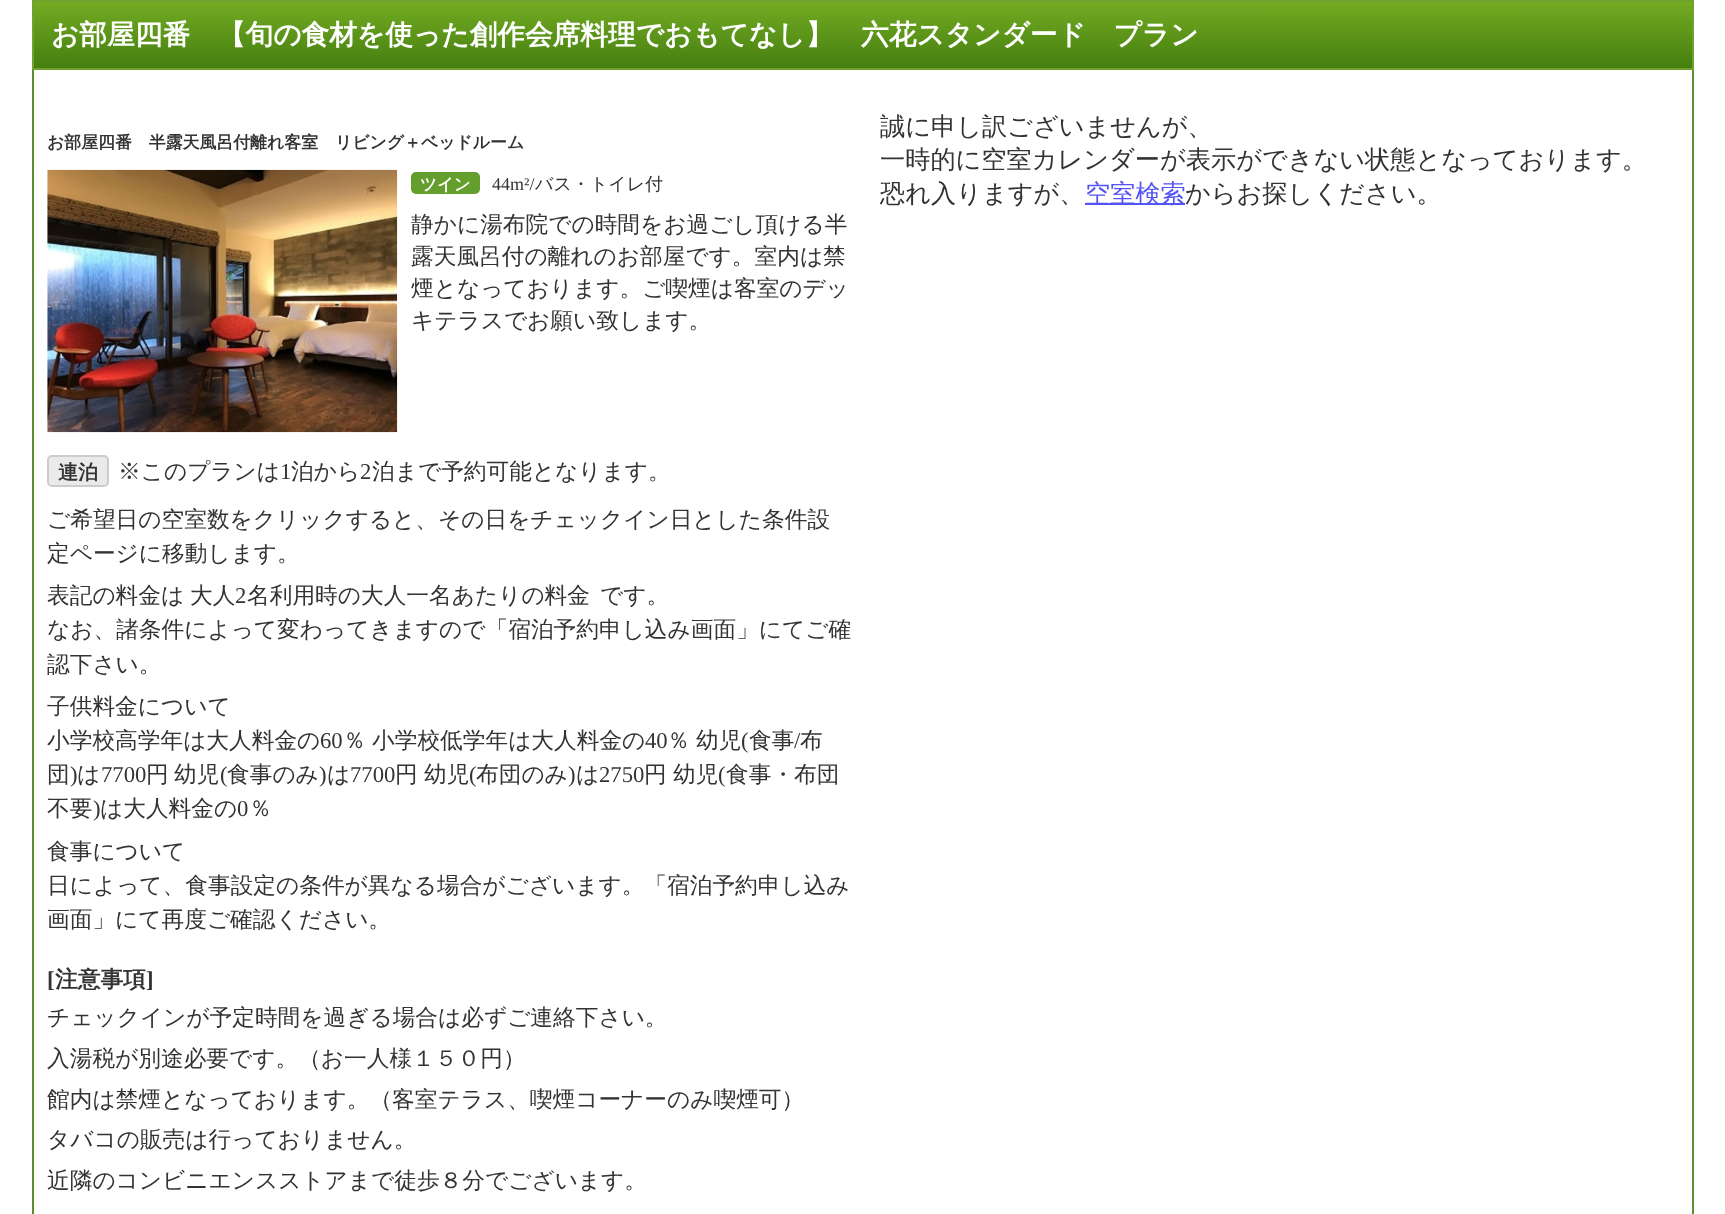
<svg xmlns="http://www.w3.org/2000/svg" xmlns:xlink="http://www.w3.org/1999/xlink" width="1725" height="1214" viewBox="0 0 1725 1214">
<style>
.cls-1{font:bold 27.7px WenQuanYi Zen Hei;fill:#ffffff}
.cls-2{font:bold 16.9px WenQuanYi Zen Hei;fill:#333333}
.cls-3{font:bold 16.5px WenQuanYi Zen Hei;fill:#ffffff}
.cls-4{font:18px Liberation Serif;fill:#333333}
.cls-5{font:500 18px WenQuanYi Zen Hei;fill:#333333}
.cls-6{font:500 22.7px WenQuanYi Zen Hei;fill:#333333}
.cls-7{font:bold 20px WenQuanYi Zen Hei;fill:#333333}
.cls-8{font:22.7px Liberation Serif;fill:#333333}
.cls-9{font:bold 22.7px Liberation Serif;fill:#333333}
.cls-10{font:bold 22.7px WenQuanYi Zen Hei;fill:#333333}
.cls-11{font:500 25.2px WenQuanYi Zen Hei;fill:#333333}
.cls-12{font:500 25.2px WenQuanYi Zen Hei;fill:#5454f6}
</style>
<defs>
<linearGradient id="g1" gradientUnits="userSpaceOnUse" x1="863" y1="1.7" x2="863" y2="68"><stop offset="0" stop-color="#73ab23"/><stop offset="1" stop-color="#457f0f"/></linearGradient>
</defs>
<rect width="100%" height="100%" fill="#ffffff"/>
<rect fill="url(#g1)" x="34" y="2" width="1658" height="66"/>
<rect fill="none" stroke="#71a230" stroke-width="2" x="33" y="1" width="1660" height="68"/>
<rect fill="#5a8e2f" x="1692" y="70" width="2" height="1144"/>
<rect fill="#5a8e2f" x="32" y="70" width="2" height="1144"/>
<image xlink:href="image0.png" x="47" y="169" width="351" height="264"/>
<rect fill="#649e2c" x="411" y="172" width="69" height="22" rx="5"/>
<rect fill="#eaeaea" stroke="#cccccc" stroke-width="2" x="48" y="456" width="60" height="30" rx="4"/>
<rect fill="#5454f6" x="1085" y="203" width="100" height="2"/>
<text class="cls-1" x="51" y="44">お部屋四番　【旬の食材を使った創作会席料理でおもてなし】　六花スタンダード　プラン</text>
<text class="cls-2" x="47" y="148">お部屋四番　半露天風呂付離れ客室　リビング＋ベッドルーム</text>
<text class="cls-3" x="420" y="190">ツイン</text>
<text class="cls-4" x="492" y="190">44m²/</text>
<text class="cls-5" x="535" y="190">バス・トイレ付</text>
<text class="cls-6"><tspan x="411" y="232">静かに湯布院での時間をお過ごし頂ける半</tspan><tspan x="411" y="264">露天風呂付の離れのお部屋です。室内は禁</tspan><tspan x="411" y="296">煙となっております。ご喫煙は客室のデッ</tspan><tspan x="411" y="328">キテラスでお願い致します。</tspan></text>
<text class="cls-7" x="58" y="479">連泊</text>
<text class="cls-6" x="118" y="479">※このプランは</text>
<text class="cls-8" x="280" y="479">1</text>
<text class="cls-6" x="291" y="479">泊から</text>
<text class="cls-8" x="360" y="479">2</text>
<text class="cls-6" x="372" y="479">泊まで予約可能となります。</text>
<text class="cls-6"><tspan x="47" y="527">ご希望日の空室数をクリックすると、その日をチェックイン日とした条件設</tspan><tspan x="47" y="561">定ページに移動します。</tspan><tspan x="47" y="603">表記の料金は</tspan></text>
<text class="cls-6" x="190" y="603">大人</text>
<text class="cls-8" x="235" y="603">2</text>
<text class="cls-6" x="247" y="603">名利用時の大人一名あたりの料金</text>
<text class="cls-6" x="600" y="603">です。</text>
<text class="cls-6"><tspan x="47" y="637">なお、諸条件によって変わってきますので「宿泊予約申し込み画面」にてご確</tspan><tspan x="47" y="672">認下さい。</tspan><tspan x="47" y="714">子供料金について</tspan><tspan x="47" y="748">小学校高学年は大人料金の</tspan></text>
<text class="cls-8" x="320" y="748">60</text>
<text class="cls-6" x="343" y="748">％</text>
<text class="cls-6" x="372" y="748">小学校低学年は大人料金の</text>
<text class="cls-8" x="645" y="748">40</text>
<text class="cls-6" x="667" y="748">％</text>
<text class="cls-6" x="696" y="748">幼児</text>
<text class="cls-8" x="741" y="748">(</text>
<text class="cls-6" x="749" y="748">食事</text>
<text class="cls-8" x="794" y="748">/</text>
<text class="cls-6" x="800" y="748">布</text>
<text class="cls-6" x="47" y="782">団</text>
<text class="cls-8" x="70" y="782">)</text>
<text class="cls-6" x="77" y="782">は</text>
<text class="cls-8" x="101" y="782">7700</text>
<text class="cls-6" x="146" y="782">円</text>
<text class="cls-6" x="174" y="782">幼児</text>
<text class="cls-8" x="220" y="782">(</text>
<text class="cls-6" x="227" y="782">食事のみ</text>
<text class="cls-8" x="319" y="782">)</text>
<text class="cls-6" x="327" y="782">は</text>
<text class="cls-8" x="350" y="782">7700</text>
<text class="cls-6" x="395" y="782">円</text>
<text class="cls-6" x="424" y="782">幼児</text>
<text class="cls-8" x="469" y="782">(</text>
<text class="cls-6" x="476" y="782">布団のみ</text>
<text class="cls-8" x="568" y="782">)</text>
<text class="cls-6" x="576" y="782">は</text>
<text class="cls-8" x="599" y="782">2750</text>
<text class="cls-6" x="644" y="782">円</text>
<text class="cls-6" x="673" y="782">幼児</text>
<text class="cls-8" x="718" y="782">(</text>
<text class="cls-6" x="726" y="782">食事・布団</text>
<text class="cls-6" x="47" y="816">不要</text>
<text class="cls-8" x="93" y="816">)</text>
<text class="cls-6" x="100" y="816">は大人料金の</text>
<text class="cls-8" x="237" y="816">0</text>
<text class="cls-6" x="249" y="816">％</text>
<text class="cls-6"><tspan x="47" y="859">食事について</tspan><tspan x="47" y="893">日によって、食事設定の条件が異なる場合がございます。「宿泊予約申し込み</tspan><tspan x="47" y="927">画面」にて再度ご確認ください。</tspan></text>
<text class="cls-9" x="47" y="987">[</text>
<text class="cls-10" x="55" y="987">注意事項</text>
<text class="cls-9" x="146" y="987">]</text>
<text class="cls-6"><tspan x="47" y="1025">チェックインが予定時間を過ぎる場合は必ずご連絡下さい。</tspan><tspan x="47" y="1066">入湯税が別途必要です。（お一人様１５０円）</tspan><tspan x="47" y="1107">館内は禁煙となっております。（客室テラス、喫煙コーナーのみ喫煙可）</tspan><tspan x="47" y="1147">タバコの販売は行っておりません。</tspan><tspan x="47" y="1188">近隣のコンビニエンスストアまで徒歩８分でございます。</tspan></text>
<text class="cls-11"><tspan x="880" y="135">誠に申し訳ございませんが、</tspan><tspan x="880" y="168">一時的に空室カレンダーが表示ができない状態となっております。</tspan><tspan x="880" y="202">恐れ入りますが、</tspan></text>
<text class="cls-12" x="1085" y="202">空室検索</text>
<text class="cls-11" x="1185" y="202">からお探しください。</text>
</svg>
